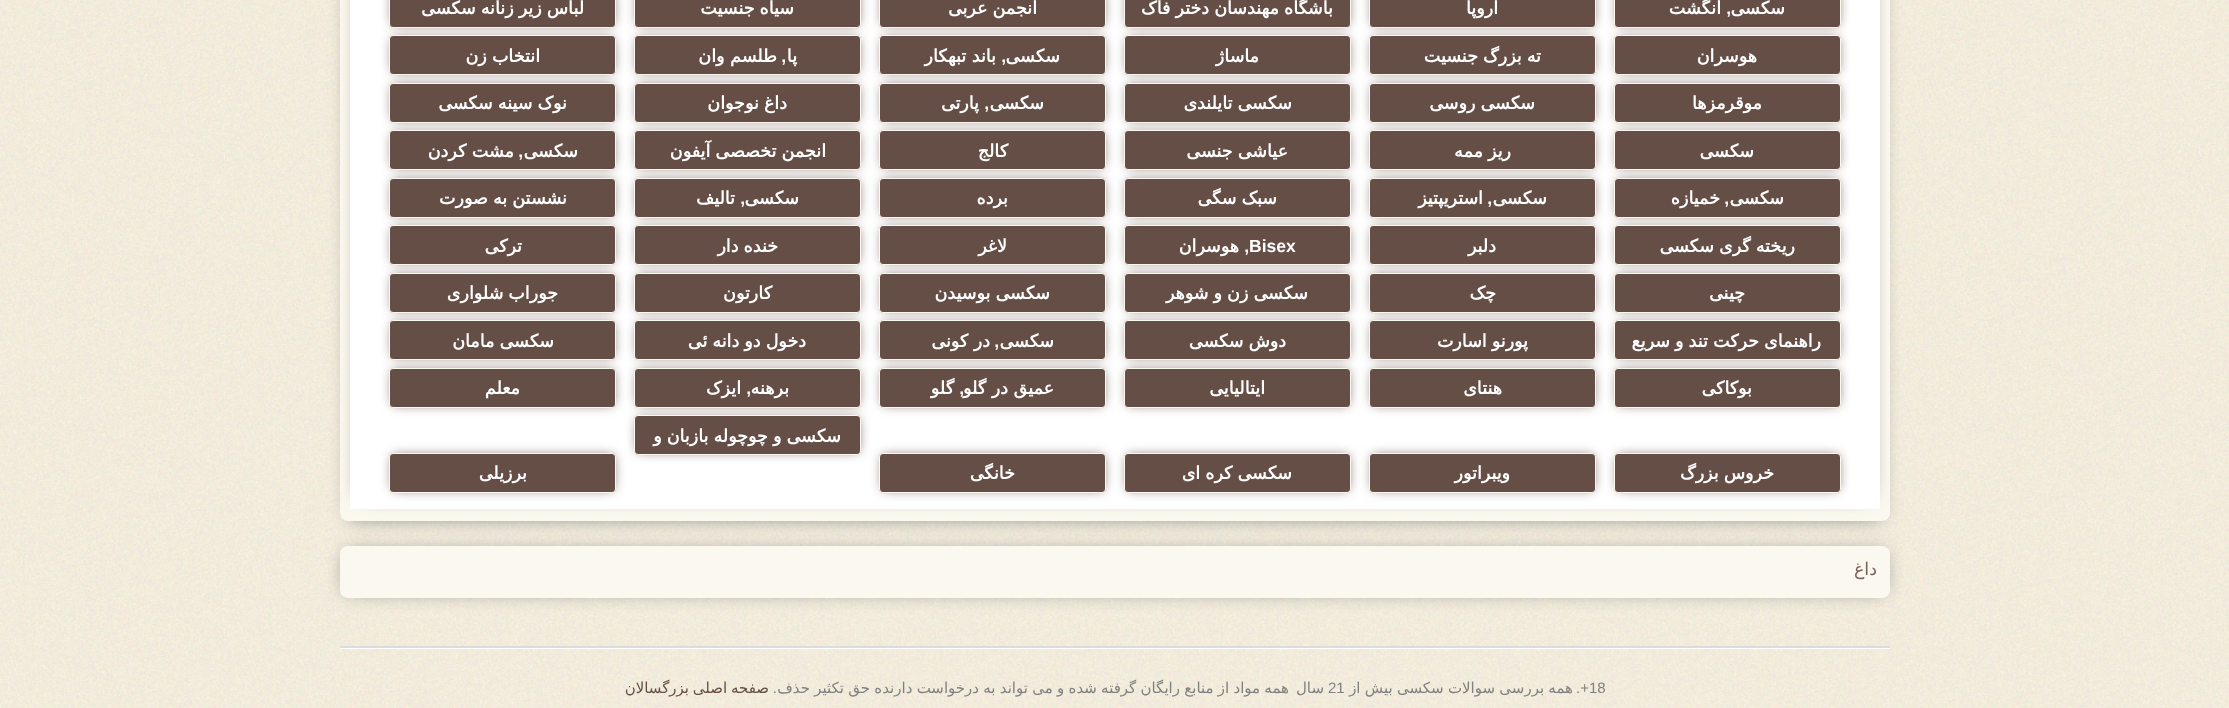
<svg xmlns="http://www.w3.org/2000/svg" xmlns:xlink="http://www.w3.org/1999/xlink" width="2229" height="708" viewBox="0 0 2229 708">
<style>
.cls-1{font:bold 17.5px DejaVu Sans;direction:rtl;fill:#ffffff}
.cls-2{font:bold 17.5px Liberation Sans;direction:rtl;fill:#ffffff}
.cls-3{font:bold 17.5px Liberation Sans;fill:#ffffff}
.cls-4{font:17.5px DejaVu Sans;direction:rtl;fill:#79625a}
.cls-5{font:15px Liberation Sans;fill:#808080}
.cls-6{font:15px Liberation Sans;direction:rtl;fill:#808080}
.cls-7{font:15px DejaVu Sans;direction:rtl;fill:#808080}
.cls-8{font:15px DejaVu Sans;direction:rtl;fill:#654e46}
</style>
<defs>
<clipPath id="clip1"><rect x="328" y="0" width="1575" height="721"/></clipPath>
</defs>
<rect width="100%" height="100%" fill="#ffffff"/>
<image xlink:href="image0.png" x="0" y="0" width="2229" height="708"/>
<g clip-path="url(#clip1)">
<rect fill="#808080" filter="blur(9.5px)" x="346" y="553" width="1538" height="38" rx="1"/>
</g>
<rect fill="#fbf8f0" x="340" y="546" width="1550" height="52" rx="8"/>
<rect fill="#808080" filter="blur(9.5px)" x="350" y="-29" width="1530" height="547"/>
<rect fill="#fbf8f0" x="340" y="-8" width="1550" height="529" rx="8"/>
<rect fill="#654e46" filter="blur(9.5px)" x="361" y="-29" width="1508" height="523"/>
<rect fill="#ffffff" x="350" y="0" width="1530" height="509"/>
<rect fill="#654e46" filter="blur(6px)" x="1618" y="-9" width="220" height="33"/>
<rect fill="#654e46" stroke="#fbf8f0" x="1614.5" y="-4.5" width="226" height="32" rx="3.5"/>
<rect fill="#654e46" filter="blur(6px)" x="1373" y="-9" width="220" height="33"/>
<rect fill="#654e46" stroke="#fbf8f0" x="1369.5" y="-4.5" width="226" height="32" rx="3.5"/>
<rect fill="#654e46" filter="blur(6px)" x="1128" y="-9" width="220" height="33"/>
<rect fill="#654e46" stroke="#fbf8f0" x="1124.5" y="-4.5" width="226" height="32" rx="3.5"/>
<rect fill="#654e46" filter="blur(6px)" x="883" y="-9" width="220" height="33"/>
<rect fill="#654e46" stroke="#fbf8f0" x="879.5" y="-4.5" width="226" height="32" rx="3.5"/>
<rect fill="#654e46" filter="blur(6px)" x="638" y="-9" width="220" height="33"/>
<rect fill="#654e46" stroke="#fbf8f0" x="634.5" y="-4.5" width="226" height="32" rx="3.5"/>
<rect fill="#654e46" filter="blur(6px)" x="393" y="-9" width="220" height="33"/>
<rect fill="#654e46" stroke="#fbf8f0" x="389.5" y="-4.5" width="226" height="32" rx="3.5"/>
<rect fill="#654e46" filter="blur(6px)" x="1618" y="39" width="220" height="32"/>
<rect fill="#654e46" stroke="#fbf8f0" x="1614.5" y="35.5" width="226" height="39" rx="3.5"/>
<rect fill="#654e46" filter="blur(6px)" x="1373" y="39" width="220" height="32"/>
<rect fill="#654e46" stroke="#fbf8f0" x="1369.5" y="35.5" width="226" height="39" rx="3.5"/>
<rect fill="#654e46" filter="blur(6px)" x="1128" y="39" width="220" height="32"/>
<rect fill="#654e46" stroke="#fbf8f0" x="1124.5" y="35.5" width="226" height="39" rx="3.5"/>
<rect fill="#654e46" filter="blur(6px)" x="883" y="39" width="220" height="32"/>
<rect fill="#654e46" stroke="#fbf8f0" x="879.5" y="35.5" width="226" height="39" rx="3.5"/>
<rect fill="#654e46" filter="blur(6px)" x="638" y="39" width="220" height="32"/>
<rect fill="#654e46" stroke="#fbf8f0" x="634.5" y="35.5" width="226" height="39" rx="3.5"/>
<rect fill="#654e46" filter="blur(6px)" x="393" y="39" width="220" height="32"/>
<rect fill="#654e46" stroke="#fbf8f0" x="389.5" y="35.5" width="226" height="39" rx="3.5"/>
<rect fill="#654e46" filter="blur(6px)" x="1618" y="86" width="220" height="33"/>
<rect fill="#654e46" stroke="#fbf8f0" x="1614.5" y="83.5" width="226" height="39" rx="3.5"/>
<rect fill="#654e46" filter="blur(6px)" x="1373" y="86" width="220" height="33"/>
<rect fill="#654e46" stroke="#fbf8f0" x="1369.5" y="83.5" width="226" height="39" rx="3.5"/>
<rect fill="#654e46" filter="blur(6px)" x="1128" y="86" width="220" height="33"/>
<rect fill="#654e46" stroke="#fbf8f0" x="1124.5" y="83.5" width="226" height="39" rx="3.5"/>
<rect fill="#654e46" filter="blur(6px)" x="883" y="86" width="220" height="33"/>
<rect fill="#654e46" stroke="#fbf8f0" x="879.5" y="83.5" width="226" height="39" rx="3.5"/>
<rect fill="#654e46" filter="blur(6px)" x="638" y="86" width="220" height="33"/>
<rect fill="#654e46" stroke="#fbf8f0" x="634.5" y="83.5" width="226" height="39" rx="3.5"/>
<rect fill="#654e46" filter="blur(6px)" x="393" y="86" width="220" height="33"/>
<rect fill="#654e46" stroke="#fbf8f0" x="389.5" y="83.5" width="226" height="39" rx="3.5"/>
<rect fill="#654e46" filter="blur(6px)" x="1618" y="134" width="220" height="32"/>
<rect fill="#654e46" stroke="#fbf8f0" x="1614.5" y="130.5" width="226" height="39" rx="3.5"/>
<rect fill="#654e46" filter="blur(6px)" x="1373" y="134" width="220" height="32"/>
<rect fill="#654e46" stroke="#fbf8f0" x="1369.5" y="130.5" width="226" height="39" rx="3.5"/>
<rect fill="#654e46" filter="blur(6px)" x="1128" y="134" width="220" height="32"/>
<rect fill="#654e46" stroke="#fbf8f0" x="1124.5" y="130.5" width="226" height="39" rx="3.5"/>
<rect fill="#654e46" filter="blur(6px)" x="883" y="134" width="220" height="32"/>
<rect fill="#654e46" stroke="#fbf8f0" x="879.5" y="130.5" width="226" height="39" rx="3.5"/>
<rect fill="#654e46" filter="blur(6px)" x="638" y="134" width="220" height="32"/>
<rect fill="#654e46" stroke="#fbf8f0" x="634.5" y="130.5" width="226" height="39" rx="3.5"/>
<rect fill="#654e46" filter="blur(6px)" x="393" y="134" width="220" height="32"/>
<rect fill="#654e46" stroke="#fbf8f0" x="389.5" y="130.5" width="226" height="39" rx="3.5"/>
<rect fill="#654e46" filter="blur(6px)" x="1618" y="181" width="220" height="33"/>
<rect fill="#654e46" stroke="#fbf8f0" x="1614.5" y="178.5" width="226" height="39" rx="3.5"/>
<rect fill="#654e46" filter="blur(6px)" x="1373" y="181" width="220" height="33"/>
<rect fill="#654e46" stroke="#fbf8f0" x="1369.5" y="178.5" width="226" height="39" rx="3.5"/>
<rect fill="#654e46" filter="blur(6px)" x="1128" y="181" width="220" height="33"/>
<rect fill="#654e46" stroke="#fbf8f0" x="1124.5" y="178.5" width="226" height="39" rx="3.5"/>
<rect fill="#654e46" filter="blur(6px)" x="883" y="181" width="220" height="33"/>
<rect fill="#654e46" stroke="#fbf8f0" x="879.5" y="178.5" width="226" height="39" rx="3.5"/>
<rect fill="#654e46" filter="blur(6px)" x="638" y="181" width="220" height="33"/>
<rect fill="#654e46" stroke="#fbf8f0" x="634.5" y="178.5" width="226" height="39" rx="3.5"/>
<rect fill="#654e46" filter="blur(6px)" x="393" y="181" width="220" height="33"/>
<rect fill="#654e46" stroke="#fbf8f0" x="389.5" y="178.5" width="226" height="39" rx="3.5"/>
<rect fill="#654e46" filter="blur(6px)" x="1618" y="229" width="220" height="32"/>
<rect fill="#654e46" stroke="#fbf8f0" x="1614.5" y="225.5" width="226" height="39" rx="3.5"/>
<rect fill="#654e46" filter="blur(6px)" x="1373" y="229" width="220" height="32"/>
<rect fill="#654e46" stroke="#fbf8f0" x="1369.5" y="225.5" width="226" height="39" rx="3.5"/>
<rect fill="#654e46" filter="blur(6px)" x="1128" y="229" width="220" height="32"/>
<rect fill="#654e46" stroke="#fbf8f0" x="1124.5" y="225.5" width="226" height="39" rx="3.5"/>
<rect fill="#654e46" filter="blur(6px)" x="883" y="229" width="220" height="32"/>
<rect fill="#654e46" stroke="#fbf8f0" x="879.5" y="225.5" width="226" height="39" rx="3.5"/>
<rect fill="#654e46" filter="blur(6px)" x="638" y="229" width="220" height="32"/>
<rect fill="#654e46" stroke="#fbf8f0" x="634.5" y="225.5" width="226" height="39" rx="3.5"/>
<rect fill="#654e46" filter="blur(6px)" x="393" y="229" width="220" height="32"/>
<rect fill="#654e46" stroke="#fbf8f0" x="389.5" y="225.5" width="226" height="39" rx="3.5"/>
<rect fill="#654e46" filter="blur(6px)" x="1618" y="276" width="220" height="33"/>
<rect fill="#654e46" stroke="#fbf8f0" x="1614.5" y="273.5" width="226" height="39" rx="3.5"/>
<rect fill="#654e46" filter="blur(6px)" x="1373" y="276" width="220" height="33"/>
<rect fill="#654e46" stroke="#fbf8f0" x="1369.5" y="273.5" width="226" height="39" rx="3.5"/>
<rect fill="#654e46" filter="blur(6px)" x="1128" y="276" width="220" height="33"/>
<rect fill="#654e46" stroke="#fbf8f0" x="1124.5" y="273.5" width="226" height="39" rx="3.5"/>
<rect fill="#654e46" filter="blur(6px)" x="883" y="276" width="220" height="33"/>
<rect fill="#654e46" stroke="#fbf8f0" x="879.5" y="273.5" width="226" height="39" rx="3.5"/>
<rect fill="#654e46" filter="blur(6px)" x="638" y="276" width="220" height="33"/>
<rect fill="#654e46" stroke="#fbf8f0" x="634.5" y="273.5" width="226" height="39" rx="3.5"/>
<rect fill="#654e46" filter="blur(6px)" x="393" y="276" width="220" height="33"/>
<rect fill="#654e46" stroke="#fbf8f0" x="389.5" y="273.5" width="226" height="39" rx="3.5"/>
<rect fill="#654e46" filter="blur(6px)" x="1618" y="324" width="220" height="32"/>
<rect fill="#654e46" stroke="#fbf8f0" x="1614.5" y="320.5" width="226" height="39" rx="3.5"/>
<rect fill="#654e46" filter="blur(6px)" x="1373" y="324" width="220" height="32"/>
<rect fill="#654e46" stroke="#fbf8f0" x="1369.5" y="320.5" width="226" height="39" rx="3.5"/>
<rect fill="#654e46" filter="blur(6px)" x="1128" y="324" width="220" height="32"/>
<rect fill="#654e46" stroke="#fbf8f0" x="1124.5" y="320.5" width="226" height="39" rx="3.5"/>
<rect fill="#654e46" filter="blur(6px)" x="883" y="324" width="220" height="32"/>
<rect fill="#654e46" stroke="#fbf8f0" x="879.5" y="320.5" width="226" height="39" rx="3.5"/>
<rect fill="#654e46" filter="blur(6px)" x="638" y="324" width="220" height="32"/>
<rect fill="#654e46" stroke="#fbf8f0" x="634.5" y="320.5" width="226" height="39" rx="3.5"/>
<rect fill="#654e46" filter="blur(6px)" x="393" y="324" width="220" height="32"/>
<rect fill="#654e46" stroke="#fbf8f0" x="389.5" y="320.5" width="226" height="39" rx="3.5"/>
<rect fill="#654e46" filter="blur(6px)" x="1618" y="371" width="220" height="33"/>
<rect fill="#654e46" stroke="#fbf8f0" x="1614.5" y="368.5" width="226" height="39" rx="3.5"/>
<rect fill="#654e46" filter="blur(6px)" x="1373" y="371" width="220" height="33"/>
<rect fill="#654e46" stroke="#fbf8f0" x="1369.5" y="368.5" width="226" height="39" rx="3.5"/>
<rect fill="#654e46" filter="blur(6px)" x="1128" y="371" width="220" height="33"/>
<rect fill="#654e46" stroke="#fbf8f0" x="1124.5" y="368.5" width="226" height="39" rx="3.5"/>
<rect fill="#654e46" filter="blur(6px)" x="883" y="371" width="220" height="33"/>
<rect fill="#654e46" stroke="#fbf8f0" x="879.5" y="368.5" width="226" height="39" rx="3.5"/>
<rect fill="#654e46" filter="blur(6px)" x="638" y="371" width="220" height="33"/>
<rect fill="#654e46" stroke="#fbf8f0" x="634.5" y="368.5" width="226" height="39" rx="3.5"/>
<rect fill="#654e46" filter="blur(6px)" x="393" y="371" width="220" height="33"/>
<rect fill="#654e46" stroke="#fbf8f0" x="389.5" y="368.5" width="226" height="39" rx="3.5"/>
<rect fill="#654e46" filter="blur(6px)" x="638" y="419" width="220" height="32"/>
<rect fill="#654e46" stroke="#fbf8f0" x="634.5" y="415.5" width="226" height="39" rx="3.5"/>
<rect fill="#654e46" filter="blur(6px)" x="1618" y="456" width="220" height="33"/>
<rect fill="#654e46" stroke="#fbf8f0" x="1614.5" y="453.5" width="226" height="39" rx="3.5"/>
<rect fill="#654e46" filter="blur(6px)" x="1373" y="456" width="220" height="33"/>
<rect fill="#654e46" stroke="#fbf8f0" x="1369.5" y="453.5" width="226" height="39" rx="3.5"/>
<rect fill="#654e46" filter="blur(6px)" x="1128" y="456" width="220" height="33"/>
<rect fill="#654e46" stroke="#fbf8f0" x="1124.5" y="453.5" width="226" height="39" rx="3.5"/>
<rect fill="#654e46" filter="blur(6px)" x="883" y="456" width="220" height="33"/>
<rect fill="#654e46" stroke="#fbf8f0" x="879.5" y="453.5" width="226" height="39" rx="3.5"/>
<rect fill="#654e46" filter="blur(6px)" x="393" y="456" width="220" height="33"/>
<rect fill="#654e46" stroke="#fbf8f0" x="389.5" y="453.5" width="226" height="39" rx="3.5"/>
<rect fill="#dcdcdc" x="340" y="646" width="1550" height="2"/>
<rect fill="#ffffff" x="340" y="648" width="1550" height="1"/>
<text class="cls-1" x="1785" y="14">سکسی</text>
<text class="cls-2" x="1731" y="14">,</text>
<text class="cls-1" x="1721" y="14">انگشت</text>
<text class="cls-1" x="1498" y="14">اروپا</text>
<text class="cls-1" x="1333" y="14" word-spacing="-0.5">باشگاه مهندسان دختر فاک</text>
<text class="cls-1" x="1037" y="14" word-spacing="-0.5">انجمن عربی</text>
<text class="cls-1" x="794" y="14" word-spacing="-0.5">سیاه جنسیت</text>
<text class="cls-1" x="584" y="14" word-spacing="-0.5">لباس زیر زنانه سکسی</text>
<text class="cls-1" x="1757" y="62">هوسران</text>
<text class="cls-1" x="1541" y="62" word-spacing="-0.5">ته بزرگ جنسیت</text>
<text class="cls-1" x="1259" y="62">ماساژ</text>
<text class="cls-1" x="1060" y="62">سکسی</text>
<text class="cls-2" x="1006" y="62">,</text>
<text class="cls-1" x="996" y="62">باند تبهکار</text>
<text class="cls-1" x="797" y="62">پا</text>
<text class="cls-2" x="786" y="62">,</text>
<text class="cls-1" x="777" y="62">طلسم وان</text>
<text class="cls-1" x="540" y="62" word-spacing="-0.5">انتخاب زن</text>
<text class="cls-1" x="1762" y="109">موقرمزها</text>
<text class="cls-1" x="1535" y="109" word-spacing="-0.5">سکسی روسی</text>
<text class="cls-1" x="1292" y="109" word-spacing="-0.5">سکسی تایلندی</text>
<text class="cls-1" x="1044" y="109">سکسی</text>
<text class="cls-2" x="989" y="109">,</text>
<text class="cls-1" x="979" y="109">پارتی</text>
<text class="cls-1" x="787" y="109" word-spacing="-0.5">داغ نوجوان</text>
<text class="cls-1" x="567" y="109" word-spacing="-0.5">نوک سینه سکسی</text>
<text class="cls-1" x="1754" y="157">سکسی</text>
<text class="cls-1" x="1511" y="157" word-spacing="-0.5">ریز ممه</text>
<text class="cls-1" x="1288" y="157" word-spacing="-0.5">عیاشی جنسی</text>
<text class="cls-1" x="1008" y="157">کالج</text>
<text class="cls-1" x="826" y="157" word-spacing="-0.5">انجمن تخصصی آیفون</text>
<text class="cls-1" x="578" y="157">سکسی</text>
<text class="cls-2" x="523" y="157">,</text>
<text class="cls-1" x="514" y="157">مشت کردن</text>
<text class="cls-1" x="1784" y="204">سکسی</text>
<text class="cls-2" x="1729" y="204">,</text>
<text class="cls-1" x="1720" y="204">خمیازه</text>
<text class="cls-1" x="1547" y="204">سکسی</text>
<text class="cls-2" x="1492" y="204">,</text>
<text class="cls-1" x="1483" y="204">استریپتیز</text>
<text class="cls-1" x="1277" y="204" word-spacing="-0.5">سبک سگی</text>
<text class="cls-1" x="1008" y="204">برده</text>
<text class="cls-1" x="799" y="204">سکسی</text>
<text class="cls-2" x="745" y="204">,</text>
<text class="cls-1" x="735" y="204">تالیف</text>
<text class="cls-1" x="567" y="204" word-spacing="-0.5">نشستن به صورت</text>
<text class="cls-1" x="1795" y="252" word-spacing="-0.5">ریخته گری سکسی</text>
<text class="cls-1" x="1496" y="252">دلبر</text>
<text class="cls-3" x="1249" y="252">Bisex</text>
<text class="cls-2" x="1249" y="252">,</text>
<text class="cls-1" x="1239" y="252">هوسران</text>
<text class="cls-1" x="1007" y="252">لاغر</text>
<text class="cls-1" x="778" y="252" word-spacing="-0.5">خنده دار</text>
<text class="cls-1" x="522" y="252">ترکی</text>
<text class="cls-1" x="1745" y="299">چینی</text>
<text class="cls-1" x="1496" y="299">چک</text>
<text class="cls-1" x="1308" y="299" word-spacing="-0.5">سکسی زن و شوهر</text>
<text class="cls-1" x="1050" y="299" word-spacing="-0.5">سکسی بوسیدن</text>
<text class="cls-1" x="772" y="299">کارتون</text>
<text class="cls-1" x="558" y="299" word-spacing="-0.5">جوراب شلواری</text>
<text class="cls-1" x="1821" y="347" word-spacing="-0.5">راهنمای حرکت تند و سریع</text>
<text class="cls-1" x="1528" y="347" word-spacing="-0.5">پورنو اسارت</text>
<text class="cls-1" x="1286" y="347" word-spacing="-0.5">دوش سکسی</text>
<text class="cls-1" x="1054" y="347">سکسی</text>
<text class="cls-2" x="999" y="347">,</text>
<text class="cls-1" x="990" y="347">در کونی</text>
<text class="cls-1" x="806" y="347" word-spacing="-0.5">دخول دو دانه ئی</text>
<text class="cls-1" x="554" y="347" word-spacing="-0.5">سکسی مامان</text>
<text class="cls-1" x="1752" y="394">بوکاکی</text>
<text class="cls-1" x="1502" y="394">هنتای</text>
<text class="cls-1" x="1265" y="394">ایتالیایی</text>
<text class="cls-1" x="1054" y="394">عمیق در گلو</text>
<text class="cls-2" x="964" y="394">,</text>
<text class="cls-1" x="954" y="394">گلو</text>
<text class="cls-1" x="789" y="394">برهنه</text>
<text class="cls-2" x="751" y="394">,</text>
<text class="cls-1" x="741" y="394">ایزک</text>
<text class="cls-1" x="520" y="394">معلم</text>
<text class="cls-1" x="841" y="442" word-spacing="-0.5">سکسی و چوچوله بازبان و</text>
<text class="cls-1" x="1774" y="479" word-spacing="-0.5">خروس بزرگ</text>
<text class="cls-1" x="1510" y="479">ویبراتور</text>
<text class="cls-1" x="1292" y="479" word-spacing="-0.5">سکسی کره ای</text>
<text class="cls-1" x="1015" y="479">خانگی</text>
<text class="cls-1" x="527" y="479">برزیلی</text>
<text class="cls-4" x="1877" y="575">داغ</text>
<text class="cls-5" x="1589" y="693">18</text>
<text class="cls-6" x="1589" y="693">+.</text>
<text class="cls-7" x="1573" y="693" word-spacing="-0.5">همه بررسی سوالات سکسی بیش از</text>
<text class="cls-5" x="1328" y="693">21</text>
<text class="cls-7" x="1324" y="693">سال</text>
<text class="cls-7" x="1289" y="693" word-spacing="-0.5">همه مواد از منابع رایگان گرفته شده و می تواند به درخواست دارنده حق تکثیر حذف</text>
<text class="cls-6" x="777" y="693">.</text>
<text class="cls-8" x="769" y="693" word-spacing="-1">صفحه اصلی بزرگسالان</text>
</svg>
